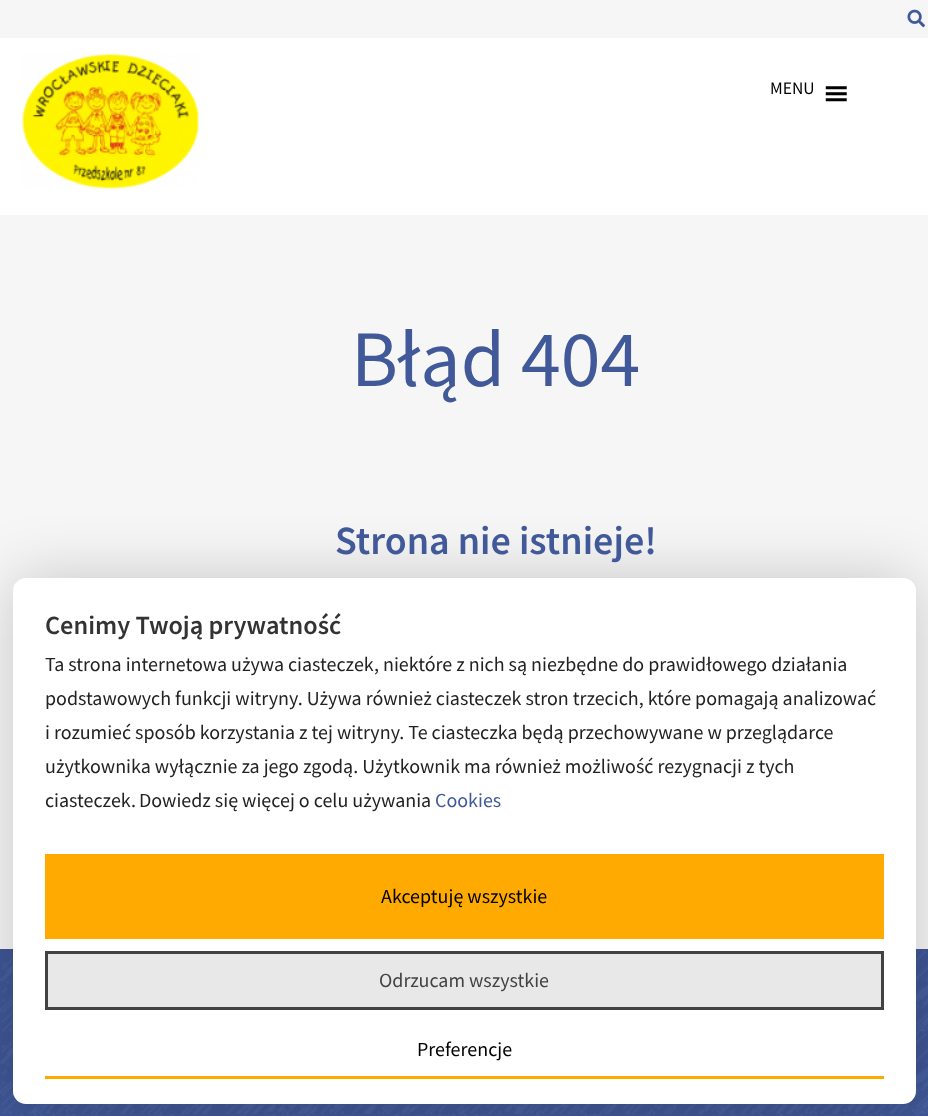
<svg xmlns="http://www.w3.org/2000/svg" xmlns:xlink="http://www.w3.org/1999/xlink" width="928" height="1116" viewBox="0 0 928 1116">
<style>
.cls-1{font:17.5px Source Sans Pro;fill:#000000}
.cls-2{font:80px Source Sans Pro;fill:#415999}
.cls-3{font:600 40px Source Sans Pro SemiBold;fill:#415999}
.cls-4{font:600 26.25px Source Sans Pro SemiBold;fill:#333333}
.cls-5{font:20px Source Sans Pro;fill:#222222}
.cls-6{font:20px Source Sans Pro;fill:#415999}
.cls-7{font:20px Source Sans Pro;fill:#000000}
.cls-8{font:20px Source Sans Pro;fill:#424242}
</style>
<rect width="100%" height="100%" fill="#f6f6f6"/>
<image xlink:href="image0.png" x="907" y="9" width="18" height="19"/>
<rect fill="#ffffff" x="0" y="38" width="928" height="177"/>
<image xlink:href="image1.png" x="21" y="53" width="178" height="136"/>
<image xlink:href="image2.png" x="825" y="86" width="22" height="16"/>
<rect fill="#415999" x="0" y="949" width="928" height="167"/>
<image xlink:href="image3.png" x="0" y="949" width="928" height="167"/>
<rect fill="#000000" fill-opacity="0.19" filter="blur(31px)" x="13" y="578" width="903" height="526" rx="13"/>
<rect fill="#ffffff" x="13" y="578" width="903" height="526" rx="13"/>
<rect fill="#ffaa00" x="45" y="854" width="839" height="85"/>
<rect fill="#e8e8e8" stroke="#424242" stroke-width="3" x="46.5" y="952.5" width="836" height="56"/>
<rect fill="#ffaa00" x="45" y="1076" width="839" height="3"/>
<text class="cls-1" x="770" y="94">MENU</text>
<text class="cls-2" x="351" y="386">Błąd 404</text>
<text class="cls-3" x="335" y="554">Strona nie istnieje!</text>
<text class="cls-4" x="45" y="634">Cenimy Twoją prywatność</text>
<text class="cls-5"><tspan x="45" y="671">Ta strona internetowa używa ciasteczek, niektóre z nich są niezbędne do prawidłowego działania</tspan><tspan x="45" y="705">podstawowych funkcji witryny. Używa również ciasteczek stron trzecich, które pomagają analizować</tspan><tspan x="45" y="739">i rozumieć sposób korzystania z tej witryny. Te ciasteczka będą przechowywane w przeglądarce</tspan><tspan x="45" y="773">użytkownika wyłącznie za jego zgodą. Użytkownik ma również możliwość rezygnacji z tych</tspan><tspan x="45" y="807">ciasteczek.</tspan></text>
<text class="cls-5" x="139" y="807">Dowiedz się więcej o celu używania</text>
<text class="cls-6" x="435" y="807">Cookies</text>
<text class="cls-7" x="381" y="903">Akceptuję wszystkie</text>
<text class="cls-8" x="379" y="987">Odrzucam wszystkie</text>
<text class="cls-7" x="417" y="1056">Preferencje</text>
</svg>
